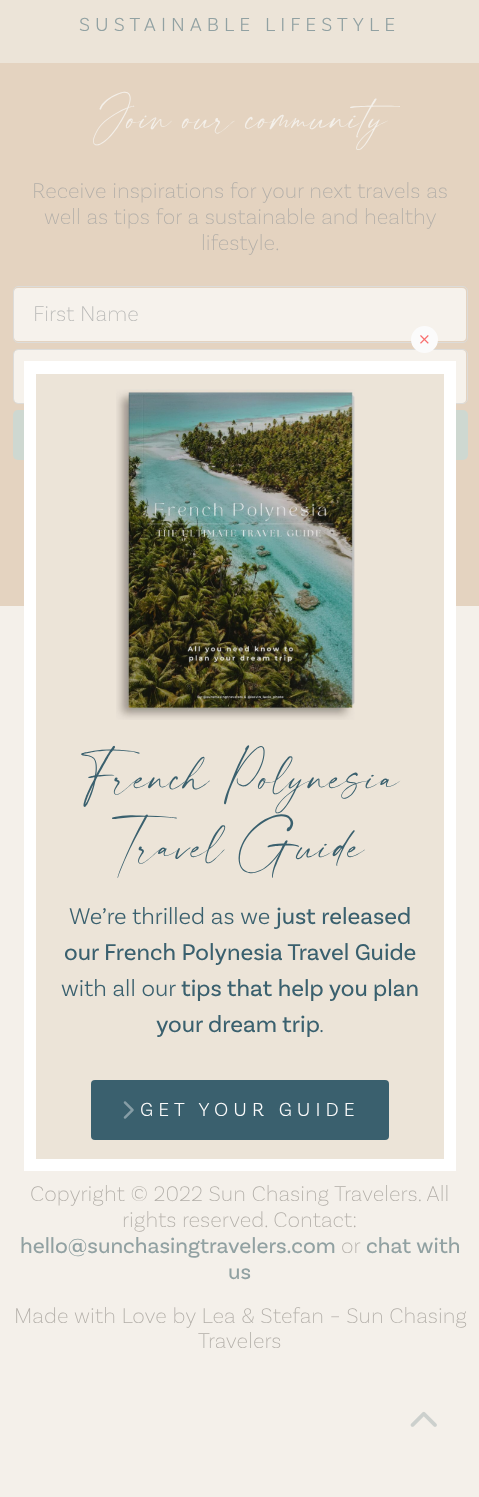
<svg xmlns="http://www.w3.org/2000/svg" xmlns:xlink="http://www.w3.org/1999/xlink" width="479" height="1497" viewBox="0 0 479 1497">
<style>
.cls-1{font:300 20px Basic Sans;letter-spacing:5px;fill:#91a1a2}
.cls-2{font:34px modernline;fill:#f4f0ea}
.cls-3{font:200 22.5px Basic Sans;fill:#b2aea8}
.cls-4{font:200 22.5px Basic Sans;fill:#b8b8b6}
.cls-5{font:22.5px Basic Sans;fill:#91a1a2}
.cls-6{font:38px modernline;fill:#3a606e}
.cls-7{font:300 24px Basic Sans;fill:#3a606e}
.cls-8{font:24px Basic Sans;fill:#3a606e}
.cls-9{font:300 20px Basic Sans;letter-spacing:5px;fill:#fbfbfb}
</style>
<rect width="100%" height="100%" fill="#f4f0ea"/>
<rect fill="#ece4d8" x="0" y="0" width="479" height="63"/>
<rect fill="#e4d3c0" x="0" y="63" width="479" height="543"/>
<rect fill="#f6f2ec" x="14" y="288" width="452" height="53" rx="4"/>
<rect fill="none" stroke="#dddcd9" x="13.5" y="286.5" width="454" height="56" rx="4.5"/>
<rect fill="#f6f2ec" x="14" y="350" width="452" height="53" rx="4"/>
<rect fill="none" stroke="#dddcd9" x="13.5" y="349.5" width="454" height="54" rx="4.5"/>
<rect fill="#ced8d1" x="13" y="410" width="455" height="50" rx="5"/>
<image xlink:href="image0.png" x="410" y="1411" width="27" height="16"/>
<circle fill="#fbfbfb" cx="424.5" cy="339.5" r="13.5"/>
<image xlink:href="image1.png" x="420" y="335" width="9" height="9"/>
<rect fill="none" stroke="#ffffff" stroke-width="13" x="30.5" y="367.5" width="419" height="797"/>
<rect fill="#ece4d8" x="36" y="374" width="408" height="785"/>
<image xlink:href="image2.png" x="116" y="389" width="239" height="331"/>
<rect fill="#3a606e" x="91" y="1080" width="298" height="60" rx="4"/>
<image xlink:href="image3.png" x="123" y="1101" width="11" height="18"/>
<text class="cls-1" x="79" y="31">SUSTAINABLE LIFESTYLE</text>
<text class="cls-2" x="93" y="131">Join our community</text>
<text class="cls-3" x="32" y="198">Receive inspirations for your next travels as</text>
<text class="cls-3" x="44" y="224">well as tips for a sustainable and healthy</text>
<text class="cls-3" x="201" y="250">lifestyle.</text>
<text class="cls-4" x="33" y="321">First Name</text>
<text class="cls-3" x="30" y="1201">Copyright © 2022 Sun Chasing Travelers. All</text>
<text class="cls-3" x="122" y="1227">rights reserved. Contact:</text>
<text class="cls-5" x="20" y="1253">hello@sunchasingtravelers.com</text>
<text class="cls-3" x="341" y="1253">or</text>
<text class="cls-5" x="366" y="1253">chat with</text>
<text class="cls-5" x="228" y="1279">us</text>
<text class="cls-3" x="14" y="1323">Made with Love by Lea &amp; Stefan – Sun Chasing</text>
<text class="cls-3" x="198" y="1348">Travelers</text>
<text class="cls-6" x="81" y="792">French Polynesia</text>
<text class="cls-6" x="115" y="861">Travel Guide</text>
<text class="cls-7" x="69" y="924">We’re thrilled as we</text>
<text class="cls-8" x="276" y="924">just released</text>
<text class="cls-8" x="64" y="960">our French Polynesia Travel Guide</text>
<text class="cls-7" x="61" y="996">with all our</text>
<text class="cls-8" x="181" y="996">tips that help you plan</text>
<text class="cls-8" x="156" y="1032">your dream trip</text>
<text class="cls-7" x="319" y="1032">.</text>
<text class="cls-9" x="140" y="1116">GET YOUR GUIDE</text>
</svg>
